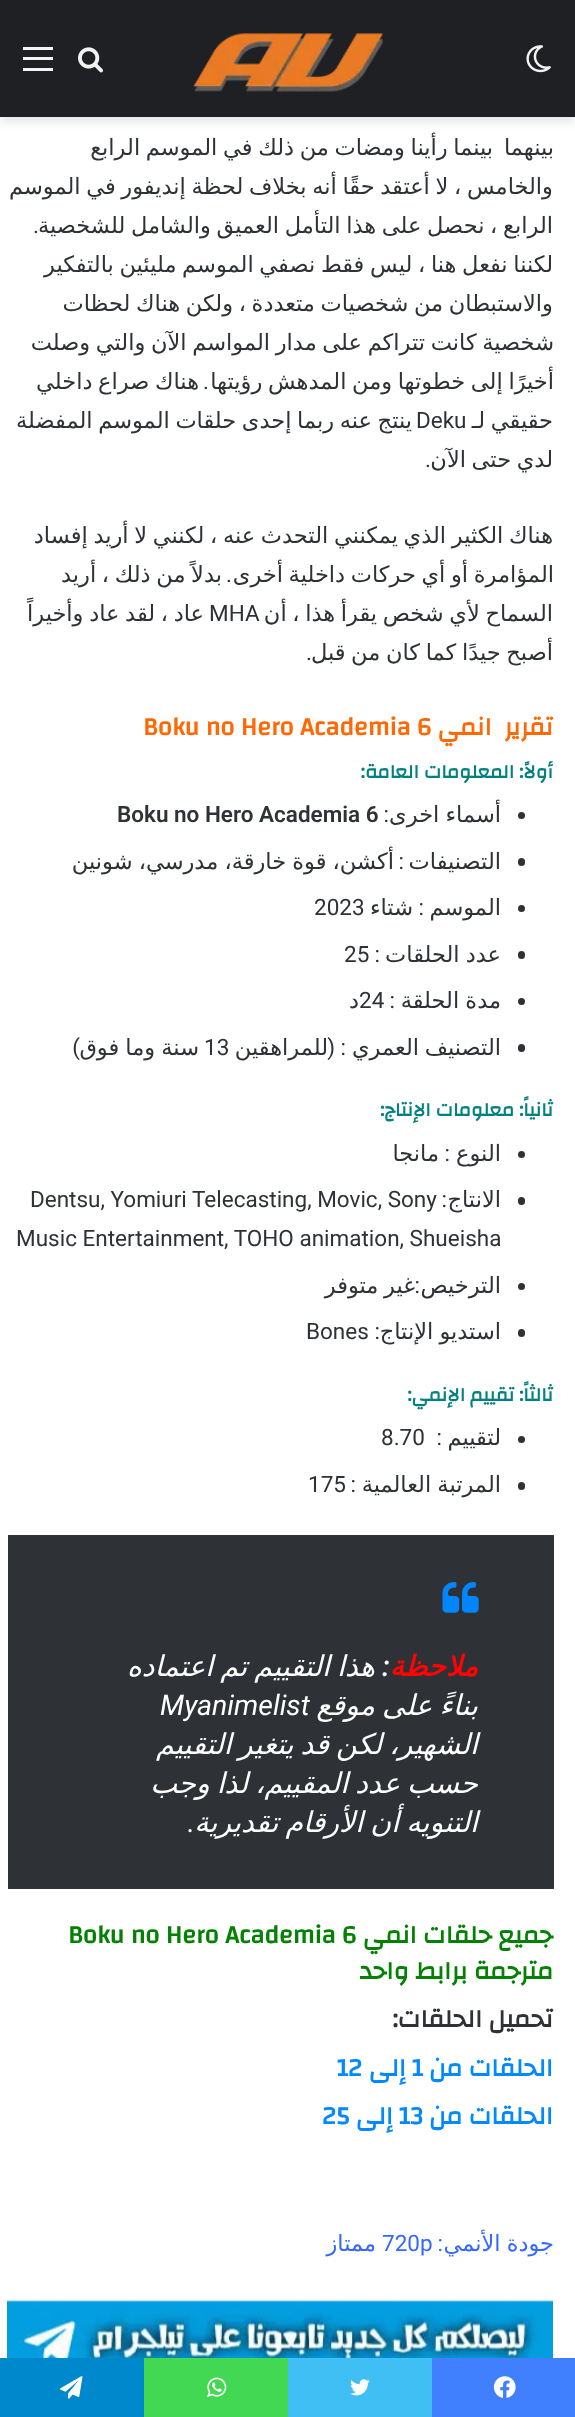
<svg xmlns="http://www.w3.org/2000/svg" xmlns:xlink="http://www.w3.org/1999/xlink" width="575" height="2417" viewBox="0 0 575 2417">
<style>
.cls-1{font:22.5px DejaVu Sans;direction:rtl;fill:#2e3136}
.cls-2{font:22.5px Roboto;direction:rtl;fill:#2e3136}
.cls-3{font:22.5px Roboto;fill:#2e3136}
.cls-4{font:bold 25.5px Changa;direction:rtl;fill:#ff6803}
.cls-5{font:bold 25.5px Changa;fill:#ff6803}
.cls-6{font:bold 19.5px Changa;direction:rtl;fill:#038181}
.cls-7{font:600 22.5px Roboto;fill:#2e3136}
.cls-8{font:italic bold 28.5px DejaVu Sans;direction:rtl;fill:#ff0303}
.cls-9{font:italic 600 28.5px Roboto;fill:#ffffff}
.cls-10{font:italic 28.5px DejaVu Sans;direction:rtl;fill:#ffffff}
.cls-11{font:italic 28.5px Roboto;fill:#ffffff}
.cls-12{font:italic 28.5px Roboto;direction:rtl;fill:#ffffff}
.cls-13{font:bold 25.5px Changa;direction:rtl;fill:#038103}
.cls-14{font:bold 25.5px Changa;fill:#038103}
.cls-15{font:bold 25.5px Changa;direction:rtl;fill:#2e3136}
.cls-16{font:bold 25.5px Changa;direction:rtl;fill:#0389ff}
.cls-17{font:bold 25.5px Changa;fill:#0389ff}
.cls-18{font:22.5px DejaVu Sans;direction:rtl;fill:#3568ff}
.cls-19{font:22.5px Roboto;direction:rtl;fill:#3568ff}
.cls-20{font:22.5px Roboto;fill:#3568ff}
</style>
<rect width="100%" height="100%" fill="#ffffff"/>
<rect fill="#000000" fill-opacity="0.1" filter="blur(5px)" x="0" y="5" width="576" height="117"/>
<rect fill="#1f2024" x="0" y="0" width="575" height="117"/>
<image xlink:href="image0.png" x="526" y="45" width="25" height="28"/>
<image xlink:href="image1.png" x="193" y="33" width="190" height="59"/>
<image xlink:href="image2.png" x="78" y="47" width="26" height="26"/>
<rect fill="#f4f4f4" x="23" y="57" width="30" height="3"/>
<rect fill="#f4f4f4" x="23" y="47" width="30" height="3"/>
<rect fill="#f4f4f4" x="23" y="68" width="30" height="3"/>
<circle fill="#2e3136" cx="521.5" cy="815.5" r="3.5"/>
<rect fill="#2e3136" x="518" y="858" width="7" height="8" rx="3.5"/>
<circle fill="#2e3136" cx="521.5" cy="908.5" r="3.5"/>
<rect fill="#2e3136" x="518" y="951" width="7" height="8" rx="3.5"/>
<circle fill="#2e3136" cx="521.5" cy="1001.5" r="3.5"/>
<rect fill="#2e3136" x="518" y="1044" width="7" height="8" rx="3.5"/>
<circle fill="#2e3136" cx="521.5" cy="1154.5" r="3.5"/>
<rect fill="#2e3136" x="518" y="1197" width="7" height="8" rx="3.5"/>
<circle fill="#2e3136" cx="521.5" cy="1286.5" r="3.5"/>
<rect fill="#2e3136" x="518" y="1329" width="7" height="8" rx="3.5"/>
<circle fill="#2e3136" cx="521.5" cy="1439.5" r="3.5"/>
<rect fill="#2e3136" x="518" y="1482" width="7" height="8" rx="3.5"/>
<rect fill="#2e3136" x="8" y="1535" width="546" height="354"/>
<image xlink:href="image3.png" x="442" y="1582" width="37" height="31"/>
<image xlink:href="image4.png" x="7" y="2300" width="546" height="58"/>
<rect fill="#4080ff" x="432" y="2358" width="143" height="59"/>
<image xlink:href="image5.png" x="493" y="2376" width="23" height="22"/>
<rect fill="#40bff5" x="288" y="2358" width="144" height="59"/>
<image xlink:href="image6.png" x="350" y="2379" width="20" height="17"/>
<rect fill="#43d854" x="144" y="2358" width="144" height="59"/>
<image xlink:href="image7.png" x="207" y="2377" width="20" height="20"/>
<rect fill="#0088cc" x="0" y="2358" width="144" height="59"/>
<image xlink:href="image8.png" x="60" y="2376" width="23" height="23"/>
<text class="cls-1" x="554" y="155">بينهما</text>
<text class="cls-1" x="493" y="155" word-spacing="-1.5">بينما رأينا ومضات من ذلك في الموسم الرابع</text>
<text class="cls-1"><tspan x="553" y="194" word-spacing="-1.5">والخامس ، لا أعتقد حقًا أنه بخلاف لحظة إنديفور في الموسم</tspan><tspan x="553" y="233" word-spacing="-1.5">الرابع ، نحصل على هذا التأمل العميق والشامل للشخصية</tspan></text>
<text class="cls-2" x="39" y="233">.</text>
<text class="cls-1"><tspan x="553" y="272" word-spacing="-1.5">لكننا نفعل هنا ، ليس فقط نصفي الموسم مليئين بالتفكير</tspan><tspan x="553" y="311" word-spacing="-1.5">والاستبطان من شخصيات متعددة ، ولكن هناك لحظات</tspan></text>
<text class="cls-1"><tspan x="554" y="350" word-spacing="-1.5">شخصية كانت تتراكم على مدار المواسم الآن والتي وصلت</tspan><tspan x="554" y="389" word-spacing="-1.5">أخيرًا إلى خطوتها ومن المدهش رؤيتها</tspan></text>
<text class="cls-2" x="209" y="389">.</text>
<text class="cls-1" x="199" y="389" word-spacing="-1.5">هناك صراع داخلي</text>
<text class="cls-1" x="553" y="428" word-spacing="-1.5">حقيقي لـ</text>
<text class="cls-1" x="412" y="428" word-spacing="-1.5">ينتج عنه ربما إحدى حلقات الموسم المفضلة</text>
<text class="cls-3" x="416" y="428">Deku</text>
<text class="cls-1" x="553" y="467" word-spacing="-1.5">لدي حتى الآن</text>
<text class="cls-2" x="431" y="467">.</text>
<text class="cls-1" x="553" y="543" word-spacing="-1.5">هناك الكثير الذي يمكنني التحدث عنه ، لكنني لا أريد إفساد</text>
<text class="cls-1" x="554" y="582" word-spacing="-1.5">المؤامرة أو أي حركات داخلية أخرى</text>
<text class="cls-2" x="232" y="582">.</text>
<text class="cls-1" x="222" y="582" word-spacing="-1.5">بدلاً من ذلك ، أريد</text>
<text class="cls-1" x="553" y="621" word-spacing="-1.5">السماح لأي شخص يقرأ هذا ، أن</text>
<text class="cls-3" x="209" y="621">MHA</text>
<text class="cls-1" x="204" y="621" word-spacing="-1.5">عاد ، لقد عاد وأخيراً</text>
<text class="cls-1" x="553" y="660" word-spacing="-1.5">أصبح جيدًا كما كان من قبل</text>
<text class="cls-2" x="312" y="660">.</text>
<text class="cls-4" xml:space="preserve" x="553" y="735">تقرير  انمي</text>
<text class="cls-5" x="143" y="735">Boku no Hero Academia 6</text>
<text class="cls-6" x="553" y="778">أولاً: المعلومات العامة:</text>
<text class="cls-1" x="501" y="822" word-spacing="-1">أسماء اخرى</text>
<text class="cls-2" x="389" y="822">:</text>
<text class="cls-7" x="117" y="822">Boku no Hero Academia 6</text>
<text class="cls-1" x="501" y="869">التصنيفات</text>
<text class="cls-2" x="404" y="869">:</text>
<text class="cls-1" x="394" y="869" word-spacing="-1">أكشن، قوة خارقة، مدرسي، شونين</text>
<text class="cls-1" x="501" y="915">الموسم</text>
<text class="cls-2" x="424" y="915">:</text>
<text class="cls-1" x="413" y="915">شتاء</text>
<text class="cls-3" x="314" y="915">2023</text>
<text class="cls-1" x="501" y="962" word-spacing="-1">عدد الحلقات</text>
<text class="cls-2" x="380" y="962">:</text>
<text class="cls-3" x="344" y="962">25</text>
<text class="cls-1" x="501" y="1008" word-spacing="-1">مدة الحلقة</text>
<text class="cls-2" x="395" y="1008">:</text>
<text class="cls-3" x="359" y="1008">24</text>
<text class="cls-1" x="359" y="1008">د</text>
<text class="cls-1" x="501" y="1055">التصنيف</text>
<text class="cls-1" x="419" y="1055">العمري</text>
<text class="cls-2" x="346" y="1055">: (</text>
<text class="cls-1" x="328" y="1055">للمراهقين</text>
<text class="cls-3" x="204" y="1055">13</text>
<text class="cls-1" x="199" y="1055" word-spacing="-1">سنة وما فوق</text>
<text class="cls-2" x="80" y="1055">)</text>
<text class="cls-6" x="553" y="1116">ثانياً: معلومات الإنتاج:</text>
<text class="cls-1" x="501" y="1161">النوع</text>
<text class="cls-2" x="450" y="1161">:</text>
<text class="cls-1" x="439" y="1161">مانجا</text>
<text class="cls-1" x="501" y="1207">الانتاج</text>
<text class="cls-2" x="447" y="1207">:</text>
<text class="cls-3" x="30" y="1207">Dentsu, Yomiuri Telecasting, Movic, Sony</text>
<text class="cls-3" x="16" y="1246">Music Entertainment, TOHO animation, Shueisha</text>
<text class="cls-1" x="501" y="1293">الترخيص</text>
<text class="cls-2" x="420" y="1293">:</text>
<text class="cls-1" x="415" y="1293" word-spacing="-1.5">غير متوفر</text>
<text class="cls-1" x="501" y="1339" word-spacing="-1">استديو الإنتاج</text>
<text class="cls-2" x="380" y="1339">:</text>
<text class="cls-3" x="306" y="1339">Bones</text>
<text class="cls-6" x="553" y="1401">ثالثاً: تقييم الإنمي:</text>
<text class="cls-1" x="501" y="1445">لتقييم</text>
<text class="cls-2" x="442" y="1445">:</text>
<text class="cls-3" x="381" y="1445">8.70</text>
<text class="cls-1" x="501" y="1492" word-spacing="-1">المرتبة العالمية</text>
<text class="cls-2" x="356" y="1492">:</text>
<text class="cls-3" x="308" y="1492">175</text>
<text class="cls-8" x="478" y="1676">ملاحظة</text>
<text class="cls-9" x="382" y="1676">:</text>
<text class="cls-10" x="375" y="1676" word-spacing="-2">هذا التقييم تم اعتماده</text>
<text class="cls-10" x="478" y="1715" word-spacing="-2">بناءً على موقع</text>
<text class="cls-11" x="160" y="1715">Myanimelist</text>
<text class="cls-10"><tspan x="478" y="1754" word-spacing="-2">الشهير، لكن قد يتغير التقييم</tspan><tspan x="478" y="1793" word-spacing="-2">حسب عدد المقييم، لذا وجب</tspan><tspan x="478" y="1832" word-spacing="-2">التنويه أن الأرقام تقديرية</tspan></text>
<text class="cls-12" x="195" y="1832">.</text>
<text class="cls-13" x="553" y="1943">جميع حلقات انمي</text>
<text class="cls-14" x="68" y="1943">Boku no Hero Academia 6</text>
<text class="cls-13" x="553" y="1979">مترجمة برابط واحد</text>
<text class="cls-15" x="553" y="2027">تحميل الحلقات:</text>
<text class="cls-16" x="553" y="2076">الحلقات من</text>
<text class="cls-17" x="412" y="2076">1</text>
<text class="cls-16" x="406" y="2076">إلى</text>
<text class="cls-17" x="337" y="2076">12</text>
<text class="cls-16" x="553" y="2124">الحلقات من</text>
<text class="cls-17" x="399" y="2124">13</text>
<text class="cls-16" x="393" y="2124">إلى</text>
<text class="cls-17" x="322" y="2124">25</text>
<text class="cls-18" x="554" y="2251" word-spacing="-1">جودة الأنمي</text>
<text class="cls-19" x="443" y="2251">:</text>
<text class="cls-20" x="382" y="2251">720p</text>
<text class="cls-18" x="376" y="2251">ممتاز</text>
</svg>
